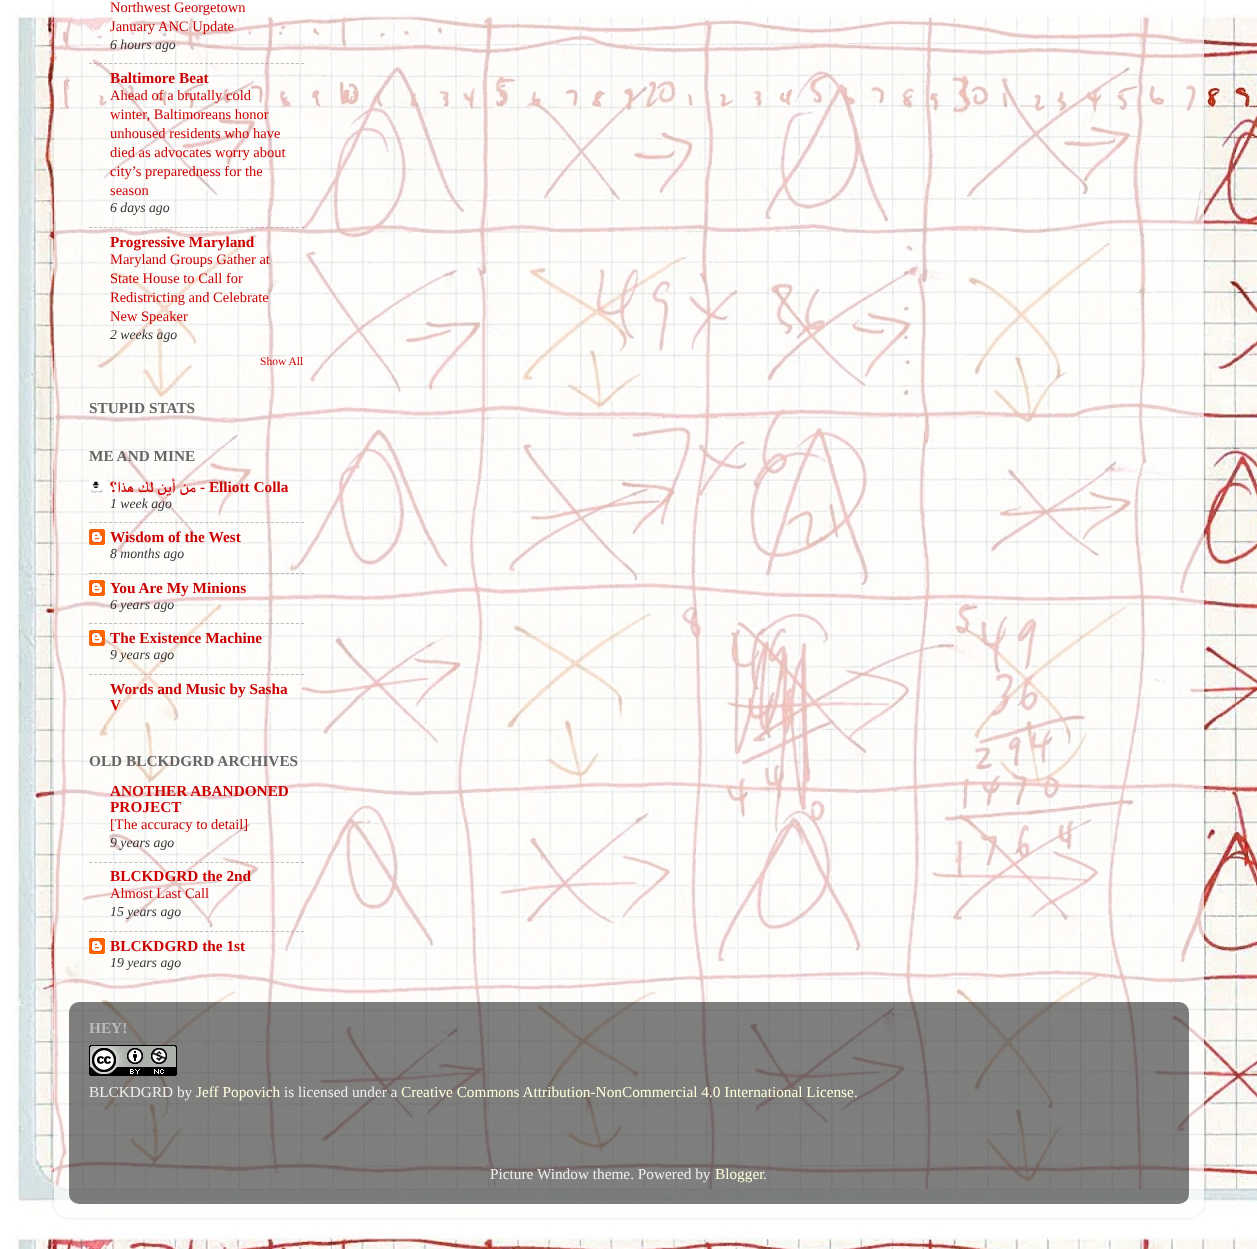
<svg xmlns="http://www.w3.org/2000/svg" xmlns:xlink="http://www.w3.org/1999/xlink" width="1257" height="1249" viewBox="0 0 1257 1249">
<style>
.cls-1{font:14.5px Liberation Serif;fill:#cc0000}
.cls-2{font:italic 13.75px Liberation Serif;fill:#333333}
.cls-3{font:bold 15.3px Liberation Serif;fill:#cc0000}
.cls-4{font:11.5px Liberation Serif;fill:#cc0000}
.cls-5{font:bold 15.3px Liberation Serif;fill:#666666}
.cls-6{font:bold 15.3px FreeSerif;direction:rtl;fill:#cc0000}
.cls-7{font:bold 15.3px Liberation Serif;fill:#bbbbbb}
.cls-8{font:15.3px Liberation Serif;fill:#eeeeee}
.cls-9{font:15.3px Liberation Serif;fill:#ffffdd}
</style>
<defs>
<clipPath id="clip1"><path d="M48 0H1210V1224H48ZM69-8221H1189C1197.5-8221 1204-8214.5 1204-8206V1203C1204 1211.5 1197.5 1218 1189 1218H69C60.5 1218 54 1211.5 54 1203V-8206C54-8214.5 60.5-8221 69-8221Z" clip-rule="evenodd"/></clipPath>
</defs>
<rect width="100%" height="100%" fill="#ffffff"/>
<image xlink:href="image0.png" x="0" y="0" width="1257" height="1249"/>
<g clip-path="url(#clip1)">
<rect fill="#000000" fill-opacity="0.15" filter="blur(1.5px)" x="54" y="-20" width="1150" height="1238" rx="15"/>
</g>
<image xlink:href="image1.png" x="54" y="15" width="1150" height="1195"/>
<path fill="none" stroke="#808080" stroke-opacity="0.5" stroke-dasharray="3 2.05" d="M89 63.5H304"/>
<path fill="none" stroke="#808080" stroke-opacity="0.5" stroke-dasharray="3 2.05" d="M89 227.5H304"/>
<image xlink:href="image2.png" x="89" y="479" width="16" height="16"/>
<path fill="none" stroke="#808080" stroke-opacity="0.5" stroke-dasharray="3 2.05" d="M89 522.5H304"/>
<image xlink:href="image3.png" x="89" y="529" width="16" height="16"/>
<path fill="none" stroke="#808080" stroke-opacity="0.5" stroke-dasharray="3 2.05" d="M89 573.5H304"/>
<image xlink:href="image4.png" x="89" y="580" width="16" height="16"/>
<path fill="none" stroke="#808080" stroke-opacity="0.5" stroke-dasharray="3 2.05" d="M89 623.5H304"/>
<image xlink:href="image5.png" x="89" y="630" width="16" height="16"/>
<path fill="none" stroke="#808080" stroke-opacity="0.5" stroke-dasharray="3 2.05" d="M89 674.5H304"/>
<path fill="none" stroke="#808080" stroke-opacity="0.5" stroke-dasharray="3 2.05" d="M89 862.5H304"/>
<path fill="none" stroke="#808080" stroke-opacity="0.5" stroke-dasharray="3 2.05" d="M89 931.5H304"/>
<image xlink:href="image6.png" x="89" y="938" width="16" height="16"/>
<image xlink:href="image7.png" x="69" y="1002" width="1120" height="202"/>
<image xlink:href="image8.png" x="89" y="1045" width="88" height="31"/>
<text class="cls-1"><tspan x="110" y="12">Northwest Georgetown</tspan><tspan x="110" y="31">January ANC Update</tspan></text>
<text class="cls-2" x="110" y="49">6 hours ago</text>
<text class="cls-3" x="110" y="83">Baltimore Beat</text>
<text class="cls-1"><tspan x="110" y="100">Ahead of a brutally cold</tspan><tspan x="110" y="119">winter, Baltimoreans honor</tspan><tspan x="110" y="138">unhoused residents who have</tspan><tspan x="110" y="157">died as advocates worry about</tspan><tspan x="110" y="176">city’s preparedness for the</tspan><tspan x="110" y="195">season</tspan></text>
<text class="cls-2" x="110" y="212">6 days ago</text>
<text class="cls-3" x="110" y="247">Progressive Maryland</text>
<text class="cls-1"><tspan x="110" y="264">Maryland Groups Gather at</tspan><tspan x="110" y="283">State House to Call for</tspan><tspan x="110" y="302">Redistricting and Celebrate</tspan><tspan x="110" y="321">New Speaker</tspan></text>
<text class="cls-2" x="110" y="339">2 weeks ago</text>
<text class="cls-4" x="260" y="365">Show All</text>
<text class="cls-5" x="89" y="413">STUPID STATS</text>
<text class="cls-5" x="89" y="461">ME AND MINE</text>
<text class="cls-6" x="196" y="492">من أين لك هذا؟</text>
<text class="cls-3" x="200" y="492">- Elliott Colla</text>
<text class="cls-2" x="110" y="508">1 week ago</text>
<text class="cls-3" x="110" y="542">Wisdom of the West</text>
<text class="cls-2" x="110" y="558">8 months ago</text>
<text class="cls-3" x="110" y="593">You Are My Minions</text>
<text class="cls-2" x="110" y="609">6 years ago</text>
<text class="cls-3" x="110" y="643">The Existence Machine</text>
<text class="cls-2" x="110" y="659">9 years ago</text>
<text class="cls-3"><tspan x="110" y="694">Words and Music by Sasha</tspan><tspan x="110" y="710">V</tspan></text>
<text class="cls-5" x="89" y="766">OLD BLCKDGRD ARCHIVES</text>
<text class="cls-3"><tspan x="110" y="796">ANOTHER ABANDONED</tspan><tspan x="110" y="812">PROJECT</tspan></text>
<text class="cls-1" x="110" y="829">[The accuracy to detail]</text>
<text class="cls-2" x="110" y="847">9 years ago</text>
<text class="cls-3" x="110" y="881">BLCKDGRD the 2nd</text>
<text class="cls-1" x="110" y="898">Almost Last Call</text>
<text class="cls-2" x="110" y="916">15 years ago</text>
<text class="cls-3" x="110" y="951">BLCKDGRD the 1st</text>
<text class="cls-2" x="110" y="967">19 years ago</text>
<text class="cls-7" x="89" y="1033">HEY!</text>
<text class="cls-8" x="89" y="1097">BLCKDGRD by</text>
<text class="cls-9" x="196" y="1097">Jeff Popovich</text>
<text class="cls-8" x="284" y="1097">is licensed under a</text>
<text class="cls-9" x="401" y="1097">Creative Commons Attribution-NonCommercial 4.0 International License</text>
<text class="cls-8" x="854" y="1097">.</text>
<text class="cls-8" x="490" y="1179">Picture Window theme. Powered by</text>
<text class="cls-9" x="715" y="1179">Blogger</text>
<text class="cls-8" x="763" y="1179">.</text>
</svg>
